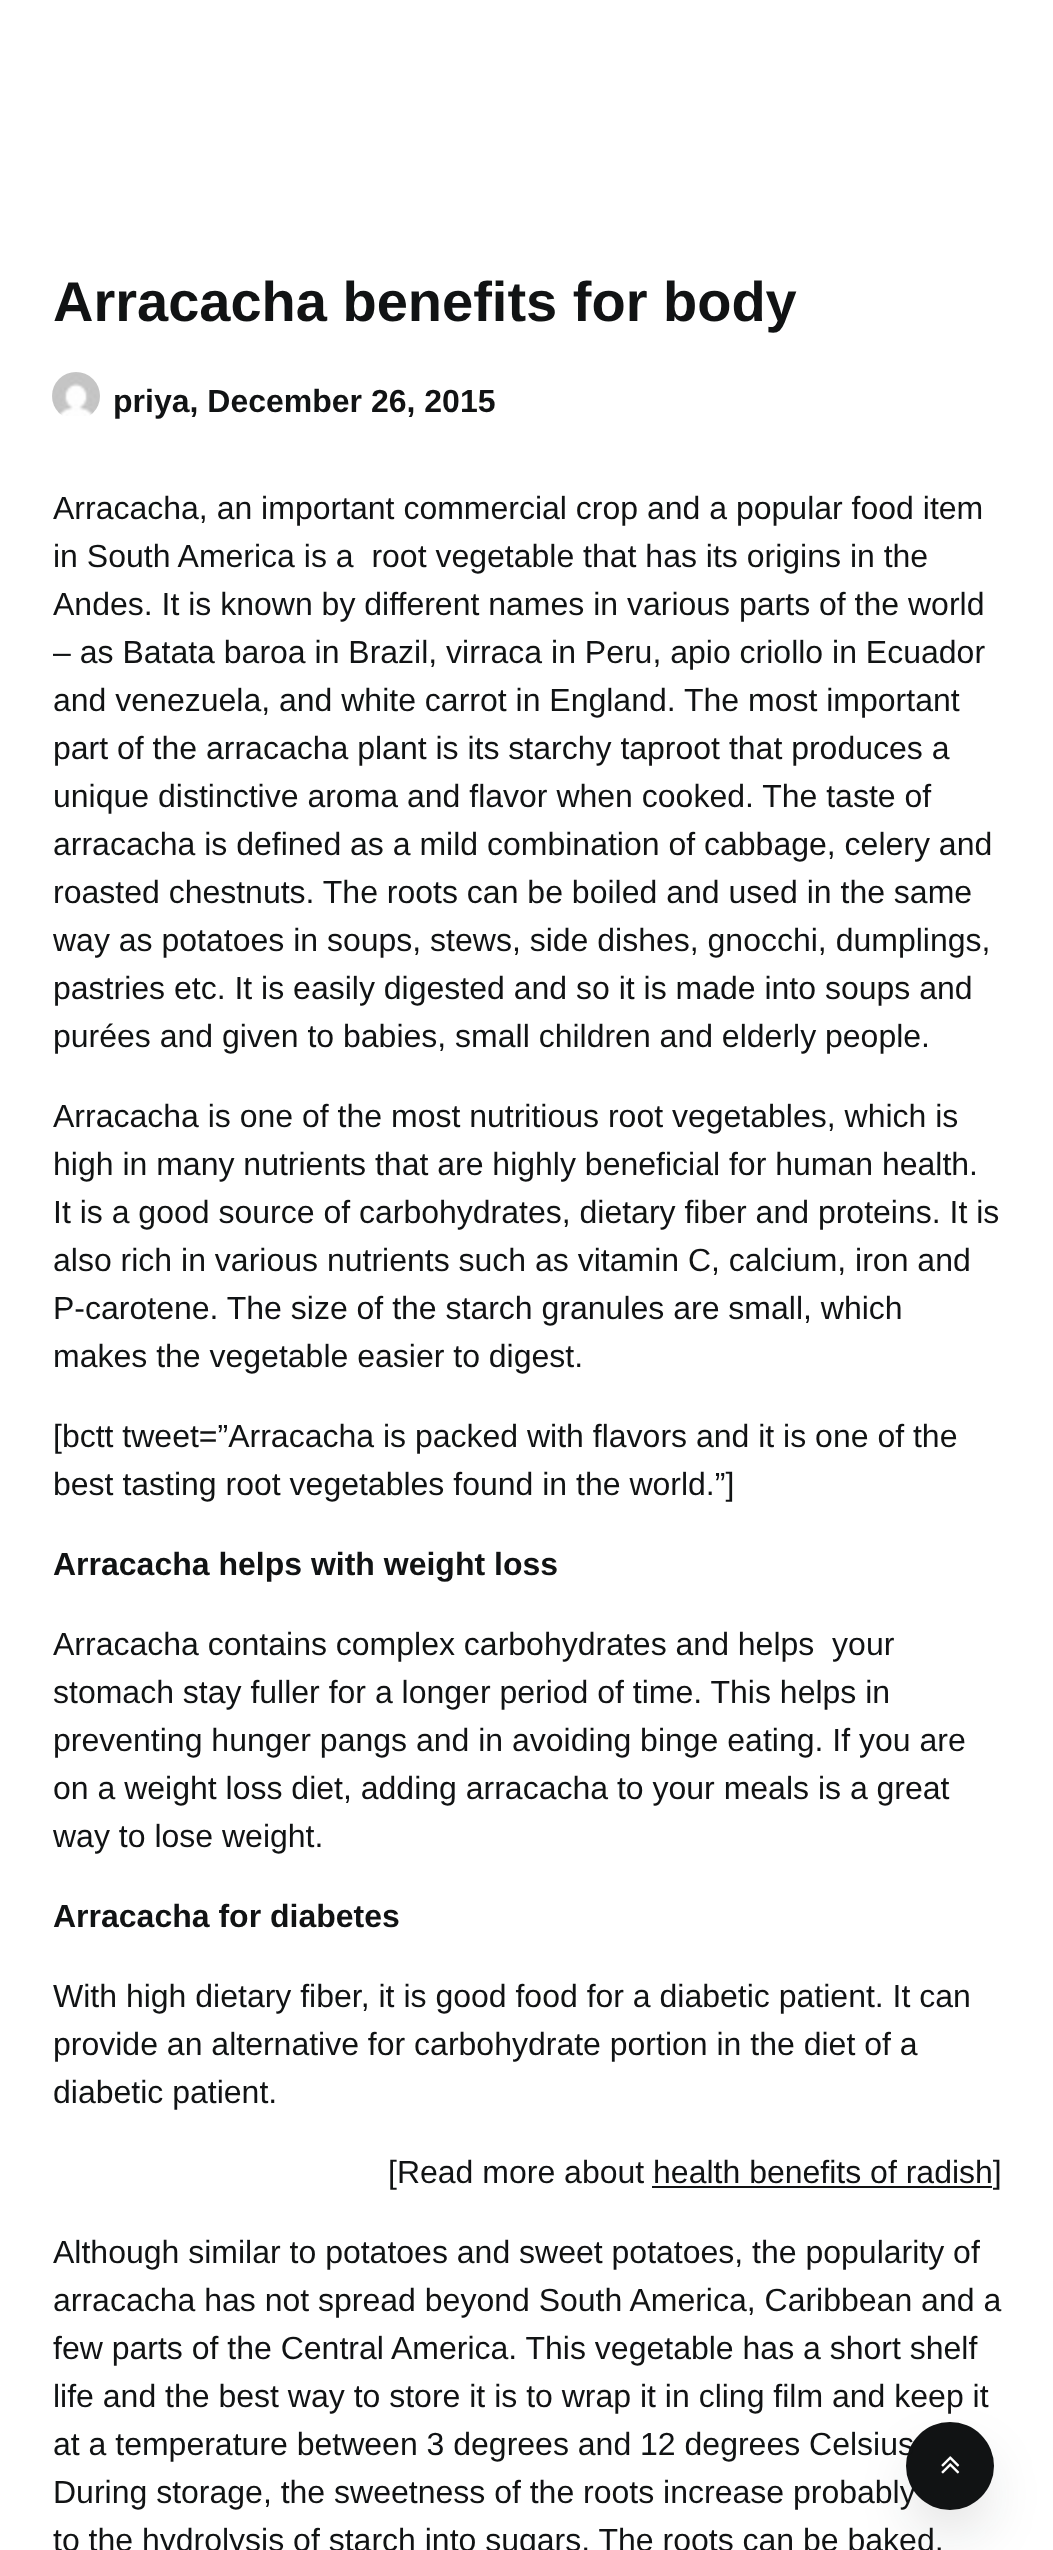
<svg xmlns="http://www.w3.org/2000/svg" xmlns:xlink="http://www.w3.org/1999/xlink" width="1053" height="2550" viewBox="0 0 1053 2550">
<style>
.cls-1{font:bold 56px Liberation Sans;fill:#111314}
.cls-2{font:bold 32px Liberation Sans;fill:#111314}
.cls-3{font:32px Liberation Sans;fill:#111314}
</style>
<rect width="100%" height="100%" fill="#ffffff"/>
<image xlink:href="image0.png" x="52" y="372" width="48" height="44"/>
<rect fill="#111314" x="652" y="2186" width="340" height="2"/>
<rect fill="#0e1114" fill-opacity="0.15" filter="blur(28px)" x="914" y="2458" width="72" height="72" rx="36"/>
<circle fill="#111314" cx="950" cy="2466" r="44"/>
<image xlink:href="image1.png" x="941" y="2456" width="19" height="18"/>
<text class="cls-1" x="53" y="321">Arracacha benefits for body</text>
<text class="cls-2" x="113" y="412">priya, December 26, 2015</text>
<text class="cls-3" xml:space="preserve"><tspan x="53" y="519">Arracacha, an important commercial crop and a popular food item</tspan><tspan x="53" y="567">in South America is a  root vegetable that has its origins in the</tspan><tspan x="53" y="615">Andes. It is known by different names in various parts of the world</tspan><tspan x="53" y="663">– as Batata baroa in Brazil, virraca in Peru, apio criollo in Ecuador</tspan><tspan x="53" y="711">and venezuela, and white carrot in England. The most important</tspan><tspan x="53" y="759">part of the arracacha plant is its starchy taproot that produces a</tspan><tspan x="53" y="807">unique distinctive aroma and flavor when cooked. The taste of</tspan><tspan x="53" y="855">arracacha is defined as a mild combination of cabbage, celery and</tspan><tspan x="53" y="903">roasted chestnuts. The roots can be boiled and used in the same</tspan><tspan x="53" y="951">way as potatoes in soups, stews, side dishes, gnocchi, dumplings,</tspan><tspan x="53" y="999">pastries etc. It is easily digested and so it is made into soups and</tspan><tspan x="53" y="1047">purées and given to babies, small children and elderly people.</tspan></text>
<text class="cls-3"><tspan x="53" y="1127">Arracacha is one of the most nutritious root vegetables, which is</tspan><tspan x="53" y="1175">high in many nutrients that are highly beneficial for human health.</tspan><tspan x="53" y="1223">It is a good source of carbohydrates, dietary fiber and proteins. It is</tspan><tspan x="53" y="1271">also rich in various nutrients such as vitamin C, calcium, iron and</tspan><tspan x="53" y="1319">P-carotene. The size of the starch granules are small, which</tspan><tspan x="53" y="1367">makes the vegetable easier to digest.</tspan></text>
<text class="cls-3"><tspan x="53" y="1447">[bctt tweet=”Arracacha is packed with flavors and it is one of the</tspan><tspan x="53" y="1495">best tasting root vegetables found in the world.”]</tspan></text>
<text class="cls-2" x="53" y="1575">Arracacha helps with weight loss</text>
<text class="cls-3" xml:space="preserve"><tspan x="53" y="1655">Arracacha contains complex carbohydrates and helps  your</tspan><tspan x="53" y="1703">stomach stay fuller for a longer period of time. This helps in</tspan><tspan x="53" y="1751">preventing hunger pangs and in avoiding binge eating. If you are</tspan><tspan x="53" y="1799">on a weight loss diet, adding arracacha to your meals is a great</tspan><tspan x="53" y="1847">way to lose weight.</tspan></text>
<text class="cls-2" x="53" y="1927">Arracacha for diabetes</text>
<text class="cls-3"><tspan x="53" y="2007">With high dietary fiber, it is good food for a diabetic patient. It can</tspan><tspan x="53" y="2055">provide an alternative for carbohydrate portion in the diet of a</tspan><tspan x="53" y="2103">diabetic patient.</tspan></text>
<text class="cls-3" x="388" y="2183">[Read more about health benefits of radish]</text>
<text class="cls-3"><tspan x="53" y="2263">Although similar to potatoes and sweet potatoes, the popularity of</tspan><tspan x="53" y="2311">arracacha has not spread beyond South America, Caribbean and a</tspan><tspan x="53" y="2359">few parts of the Central America. This vegetable has a short shelf</tspan><tspan x="53" y="2407">life and the best way to store it is to wrap it in cling film and keep it</tspan><tspan x="53" y="2455">at a temperature between 3 degrees and 12 degrees Celsius</tspan><tspan x="53" y="2503">During storage, the sweetness of the roots increase probably</tspan><tspan x="53" y="2551">to the hydrolysis of starch into sugars. The roots can be baked,</tspan></text>
</svg>
